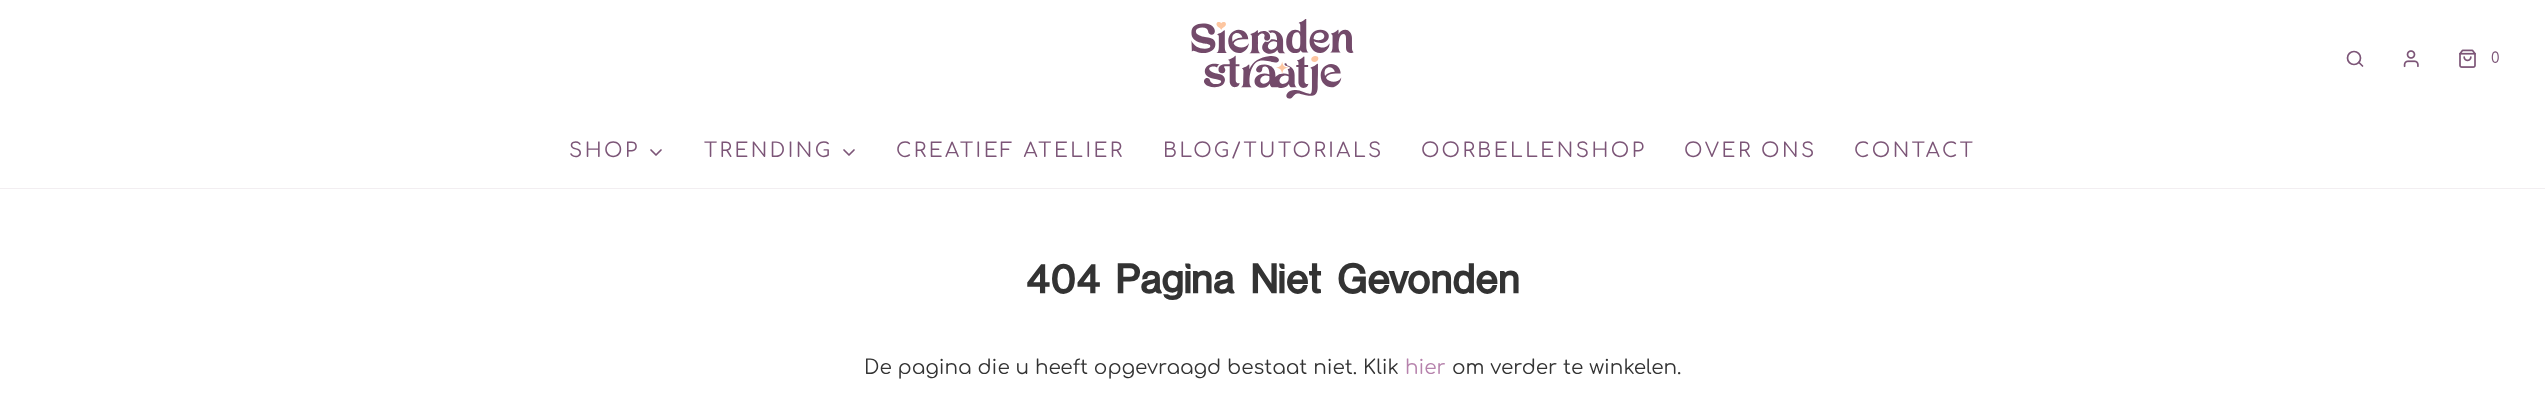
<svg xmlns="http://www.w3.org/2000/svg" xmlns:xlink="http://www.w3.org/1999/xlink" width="2545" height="412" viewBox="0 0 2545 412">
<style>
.cls-1{font:15px Comfortaa;fill:#7c5577}
.cls-2{font:20px Comfortaa;letter-spacing:2.5px;fill:#7c5577}
.cls-3{font:900 42.5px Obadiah;fill:#333333}
.cls-4{font:20px Comfortaa;fill:#333333}
.cls-5{font:20px Comfortaa;fill:#b682ac}
</style>
<rect width="100%" height="100%" fill="#ffffff"/>
<rect fill="#f2eef1" x="0" y="188" width="2545" height="1"/>
<image xlink:href="image0.png" x="1191" y="19" width="163" height="80"/>
<circle fill="none" stroke="#7c5577" stroke-width="1.7" cx="2354" cy="58" r="6.5"/>
<path fill="none" stroke="#7c5577" stroke-width="1.7" stroke-linecap="round" stroke-linejoin="round" d="M2362.5 66L2359 62.5"/>
<image xlink:href="image1.png" x="2403" y="50" width="16" height="18"/>
<image xlink:href="image2.png" x="2459" y="49" width="17" height="19"/>
<path fill="none" stroke="#7c5577" stroke-width="1.7" stroke-linecap="round" stroke-linejoin="round" d="M651 150L656 155L661 150"/>
<path fill="none" stroke="#7c5577" stroke-width="1.7" stroke-linecap="round" stroke-linejoin="round" d="M844 150L849 155L854 150"/>
<text class="cls-1" x="2491" y="63">0</text>
<text class="cls-2" x="569" y="157">SHOP</text>
<text class="cls-2" x="704" y="157">TRENDING</text>
<text class="cls-2" x="896" y="157">CREATIEF ATELIER</text>
<text class="cls-2" x="1163" y="157">BLOG/TUTORIALS</text>
<text class="cls-2" x="1421" y="157">OORBELLENSHOP</text>
<text class="cls-2" x="1684" y="157">OVER ONS</text>
<text class="cls-2" x="1854" y="157">CONTACT</text>
<text class="cls-3" x="1026" y="293">404 Pagina Niet Gevonden</text>
<text class="cls-4" x="864" y="374">De pagina die u heeft opgevraagd bestaat niet. Klik</text>
<text class="cls-5" x="1405" y="374">hier</text>
<text class="cls-4" x="1452" y="374">om verder te winkelen.</text>
</svg>
